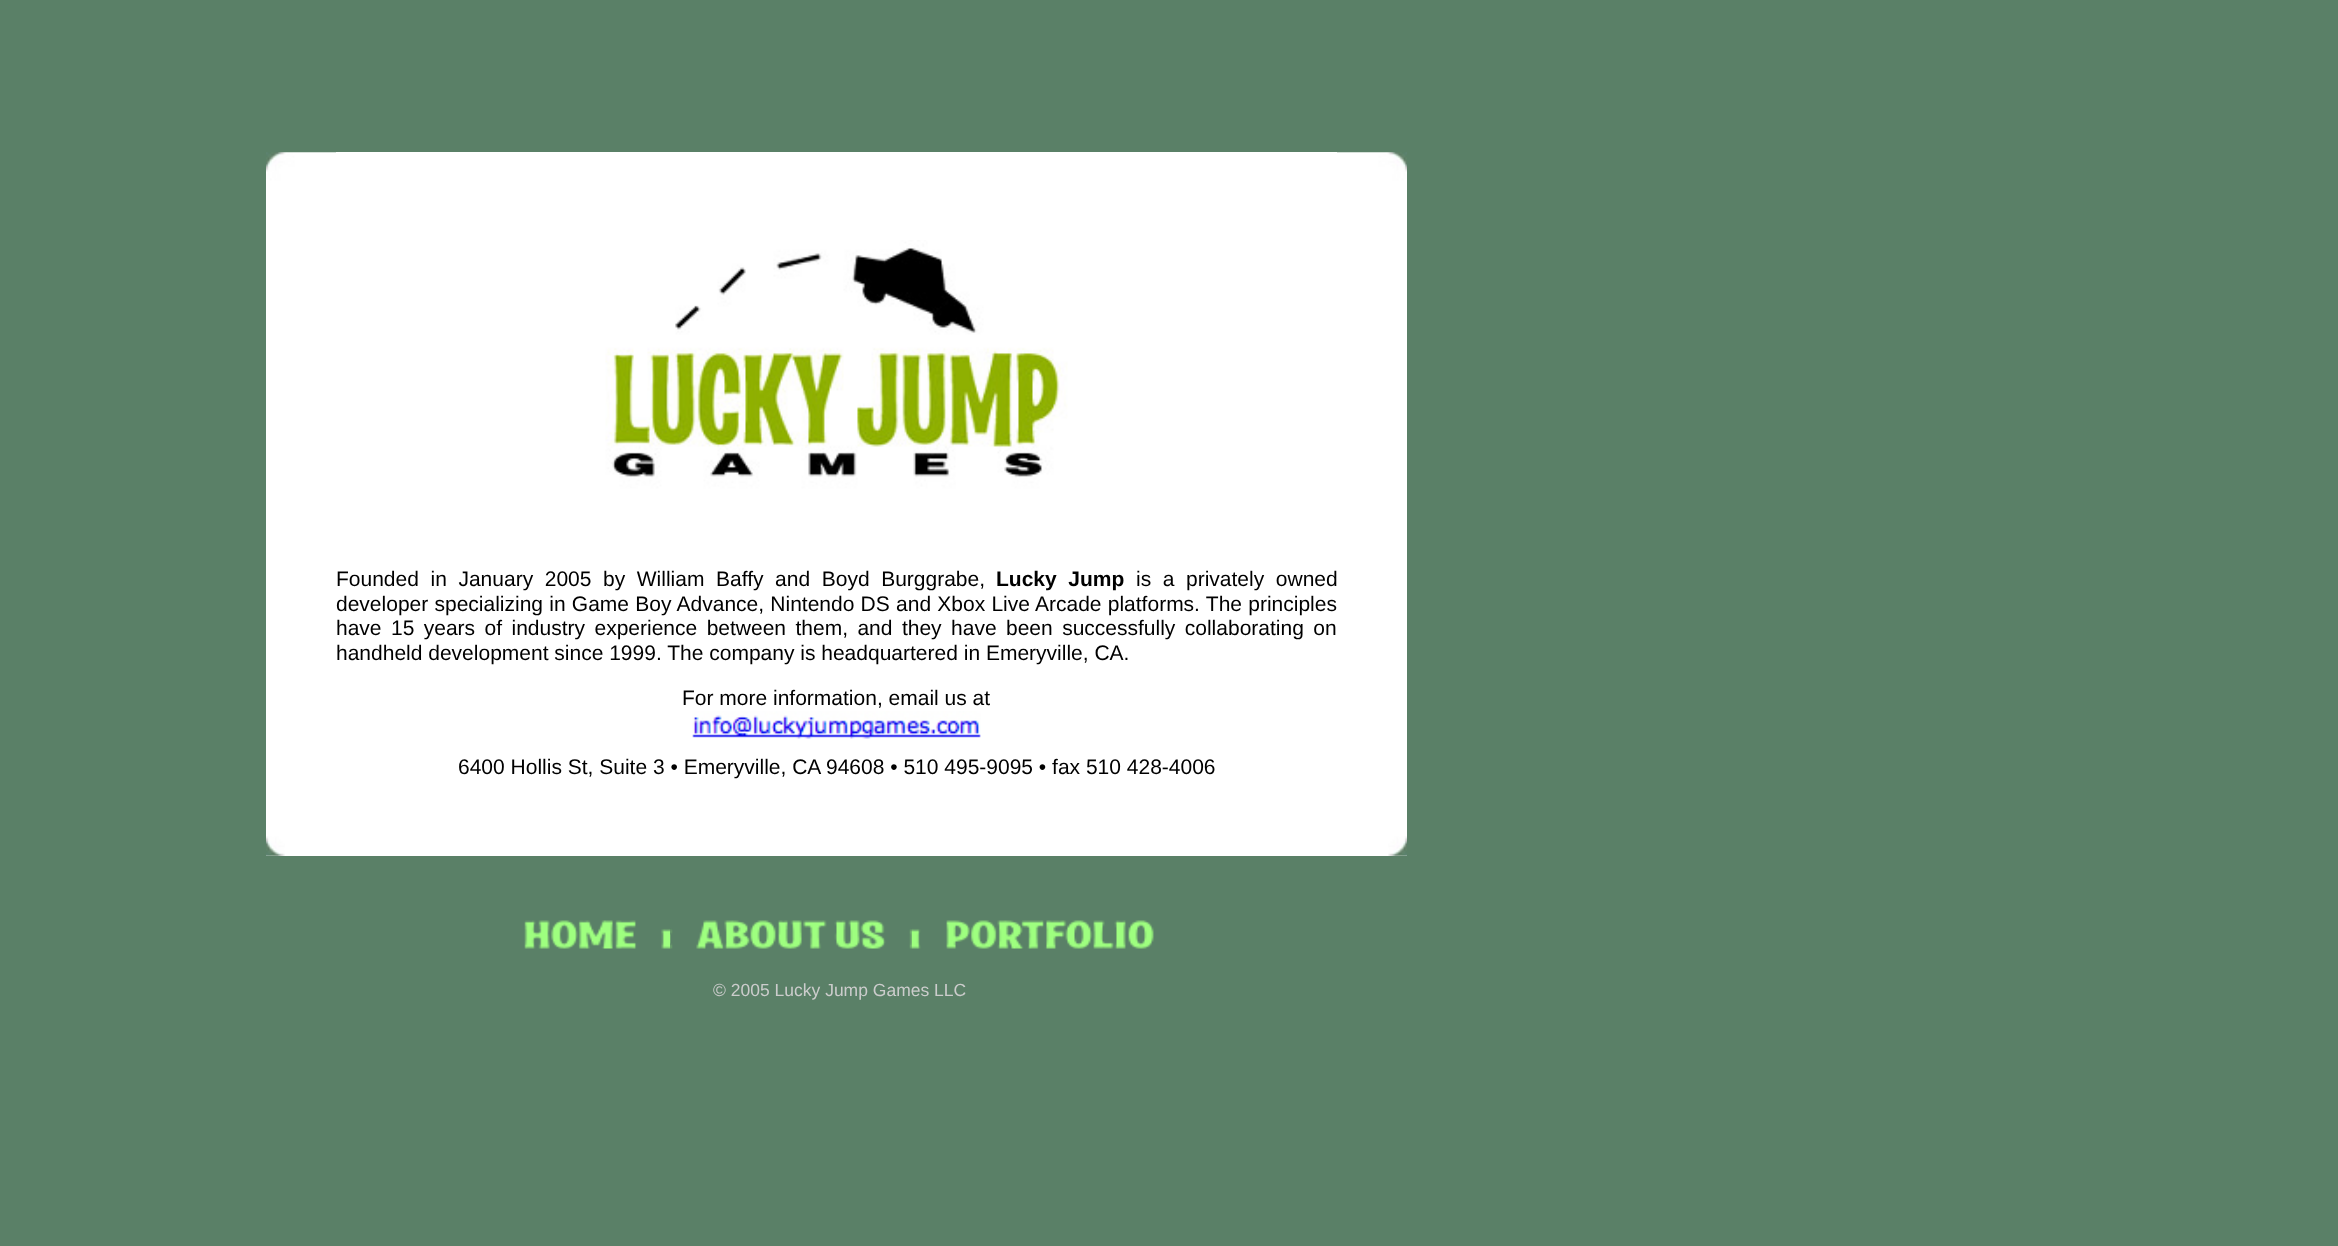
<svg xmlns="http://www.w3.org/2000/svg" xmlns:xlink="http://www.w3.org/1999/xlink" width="2338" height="1246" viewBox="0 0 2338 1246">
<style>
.cls-1{font:21px Liberation Sans;fill:#000000}
.cls-2{font:bold 21px Liberation Sans;fill:#000000}
.cls-3{font:17.5px Liberation Sans;fill:#cccccc}
</style>
<rect width="100%" height="100%" fill="#5a8067"/>
<image xlink:href="image0.png" x="266" y="152" width="70" height="70"/>
<rect fill="#ffffff" x="336" y="152" width="1001" height="704"/>
<image xlink:href="image1.png" x="1337" y="152" width="70" height="70"/>
<rect fill="#ffffff" x="266" y="222" width="70" height="634"/>
<image xlink:href="image2.png" x="591" y="240" width="491" height="262"/>
<rect fill="#ffffff" x="1337" y="222" width="70" height="634"/>
<image xlink:href="image3.png" x="692" y="711" width="289" height="28"/>
<image xlink:href="image4.png" x="266" y="836" width="19" height="20"/>
<image xlink:href="image5.png" x="1388" y="836" width="19" height="20"/>
<image xlink:href="image6.png" x="524" y="920" width="147" height="29"/>
<image xlink:href="image7.png" x="670" y="920" width="242" height="29"/>
<image xlink:href="image8.png" x="911" y="920" width="243" height="29"/>
<text class="cls-1" x="336" y="586" word-spacing="5.75">Founded in January 2005 by William Baffy and Boyd Burggrabe,</text>
<text class="cls-2" x="996" y="586" word-spacing="5.75">Lucky Jump</text>
<text class="cls-1" x="1136" y="586" word-spacing="5.75">is a privately owned</text>
<text class="cls-1"><tspan x="336" y="611" word-spacing="0.4">developer specializing in Game Boy Advance, Nintendo DS and Xbox Live Arcade platforms. The principles</tspan><tspan x="336" y="635" word-spacing="3.6">have 15 years of industry experience between them, and they have been successfully collaborating on</tspan><tspan x="336" y="660">handheld development since 1999. The company is headquartered in Emeryville, CA.</tspan></text>
<text class="cls-1" x="682" y="705">For more information, email us at</text>
<text class="cls-1" x="458" y="774">6400 Hollis St, Suite 3 • Emeryville, CA 94608 • 510 495-9095 • fax 510 428-4006</text>
<text class="cls-3" x="713" y="996">© 2005 Lucky Jump Games LLC</text>
</svg>
